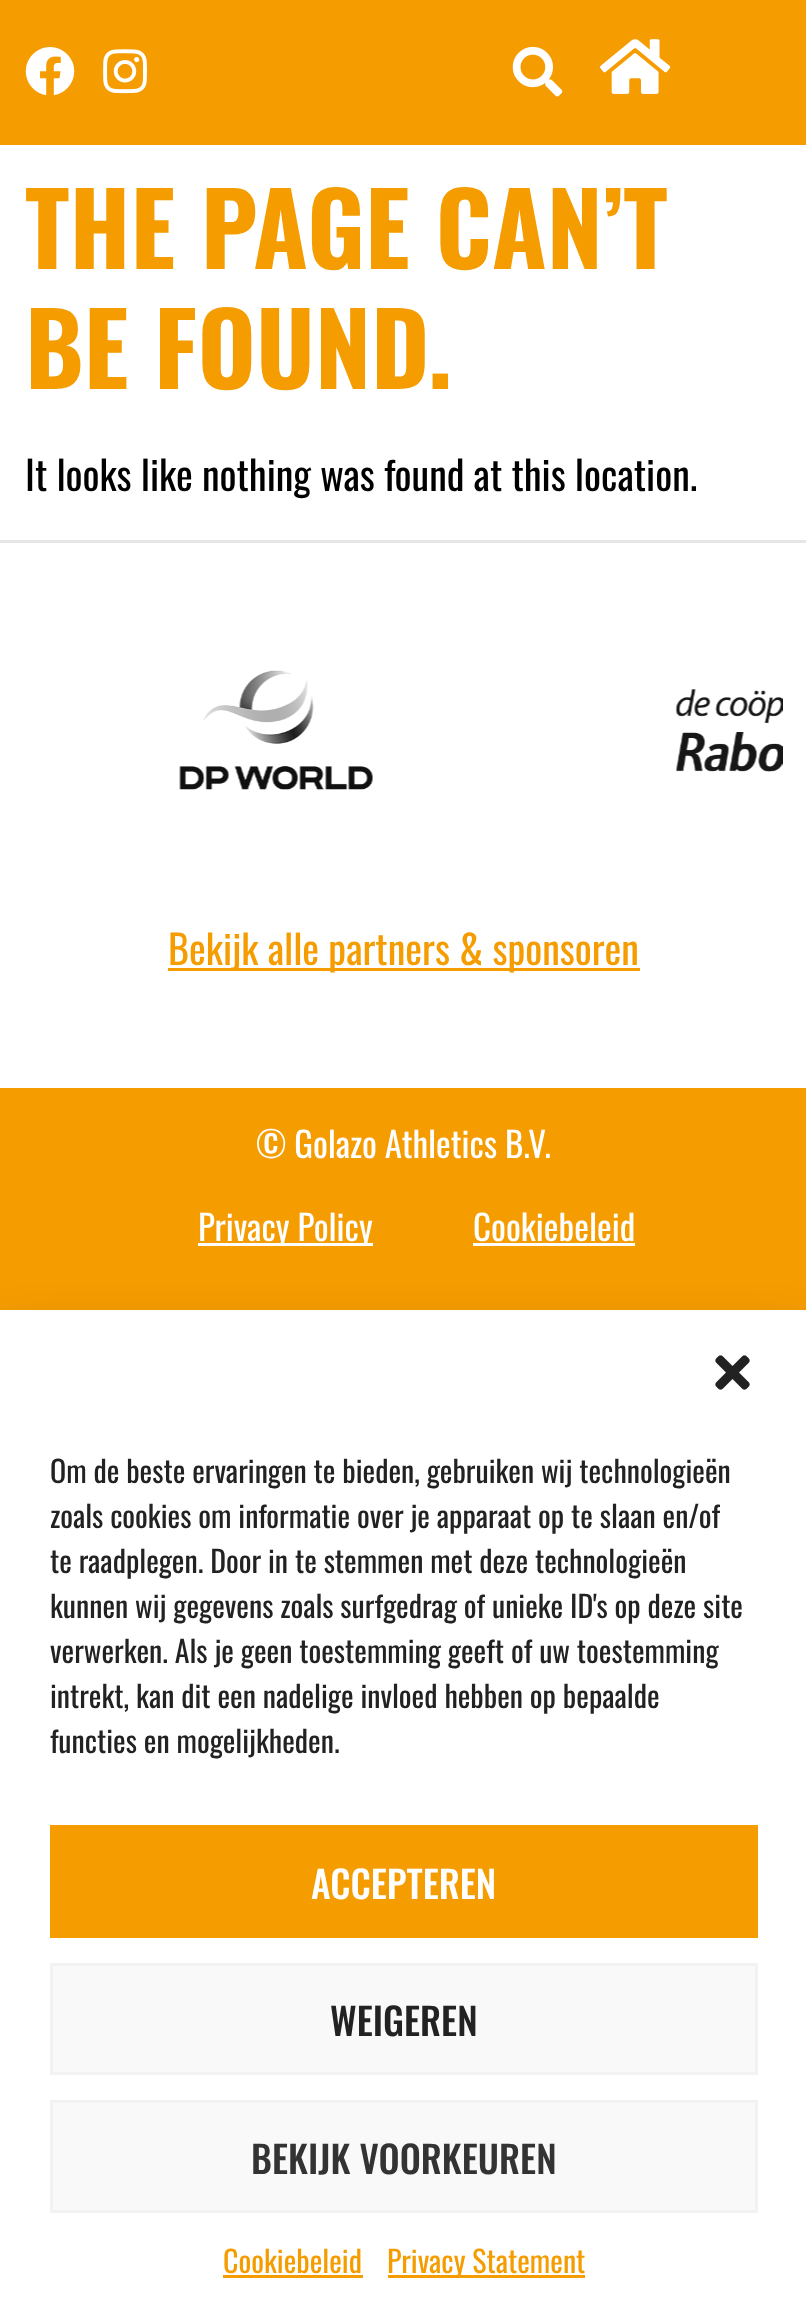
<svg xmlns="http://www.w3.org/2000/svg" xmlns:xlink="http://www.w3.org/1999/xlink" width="806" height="2318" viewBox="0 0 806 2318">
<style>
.cls-1{font:bold 100px Oswald;fill:#f59c00}
.cls-2{font:40px Oswald;fill:#000000}
.cls-3{font:40px Oswald;fill:#f59c00}
.cls-4{font:35px Oswald;fill:#ffffff}
.cls-5{font:30px Oswald;fill:#222222}
.cls-6{font:500 37.5px Oswald;fill:#ffffff}
.cls-7{font:500 37.5px Oswald;fill:#222222}
.cls-8{font:500 37.5px Oswald;fill:#333333}
.cls-9{font:30px Oswald;fill:#f59c00}
</style>
<rect width="100%" height="100%" fill="#ffffff"/>
<rect fill="#f59c00" x="0" y="0" width="806" height="145"/>
<image xlink:href="image0.png" x="25" y="47" width="50" height="49"/>
<image xlink:href="image1.png" x="103" y="49" width="44" height="45"/>
<image xlink:href="image2.png" x="512" y="46" width="51" height="51"/>
<image xlink:href="image3.png" x="600" y="39" width="71" height="55"/>
<rect fill="#e6e6e6" x="0" y="540" width="806" height="3"/>
<image xlink:href="image4.png" x="179" y="670" width="194" height="120"/>
<image xlink:href="image5.png" x="675" y="689" width="108" height="83"/>
<rect fill="#f59c00" x="168" y="968" width="472" height="3"/>
<rect fill="#f59c00" x="0" y="1088" width="806" height="222"/>
<rect fill="#ffffff" x="198" y="1243" width="175" height="3"/>
<rect fill="#ffffff" x="473" y="1243" width="162" height="3"/>
<rect fill="#000000" fill-opacity="0.19" filter="blur(25px)" x="0" y="1335" width="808" height="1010"/>
<rect fill="#ffffff" x="0" y="1310" width="806" height="1008"/>
<image xlink:href="image6.png" x="715" y="1355" width="35" height="35"/>
<rect fill="#f59c00" x="50" y="1825" width="708" height="113"/>
<rect fill="#f9f9f9" stroke="#f2f2f2" stroke-width="3" x="51.5" y="1964.5" width="705" height="109"/>
<rect fill="#f9f9f9" stroke="#f2f2f2" stroke-width="3" x="51.5" y="2101.5" width="705" height="110"/>
<rect fill="#f59c00" x="223" y="2275" width="140" height="3"/>
<rect fill="#f59c00" x="388" y="2275" width="197" height="3"/>
<text class="cls-1"><tspan x="25" y="269">THE PAGE CAN’T</tspan><tspan x="25" y="389">BE FOUND.</tspan></text>
<text class="cls-2" x="25" y="491">It looks like nothing was found at this location.</text>
<text class="cls-3" x="168" y="965">Bekijk alle partners &amp; sponsoren</text>
<text class="cls-4" x="256" y="1158">© Golazo Athletics B.V.</text>
<text class="cls-4" x="198" y="1241">Privacy Policy</text>
<text class="cls-4" x="473" y="1241">Cookiebeleid</text>
<text class="cls-5"><tspan x="50" y="1483">Om de beste ervaringen te bieden, gebruiken wij technologieën</tspan><tspan x="50" y="1528">zoals cookies om informatie over je apparaat op te slaan en/of</tspan><tspan x="50" y="1573">te raadplegen. Door in te stemmen met deze technologieën</tspan><tspan x="50" y="1618">kunnen wij gegevens zoals surfgedrag of unieke ID's op deze site</tspan><tspan x="50" y="1663">verwerken. Als je geen toestemming geeft of uw toestemming</tspan><tspan x="50" y="1708">intrekt, kan dit een nadelige invloed hebben op bepaalde</tspan><tspan x="50" y="1753">functies en mogelijkheden.</tspan></text>
<text class="cls-6" x="311" y="1899">ACCEPTEREN</text>
<text class="cls-7" x="330" y="2036">WEIGEREN</text>
<text class="cls-8" x="251" y="2174">BEKIJK VOORKEUREN</text>
<text class="cls-9" x="223" y="2273">Cookiebeleid</text>
<text class="cls-9" x="387" y="2273">Privacy Statement</text>
</svg>
